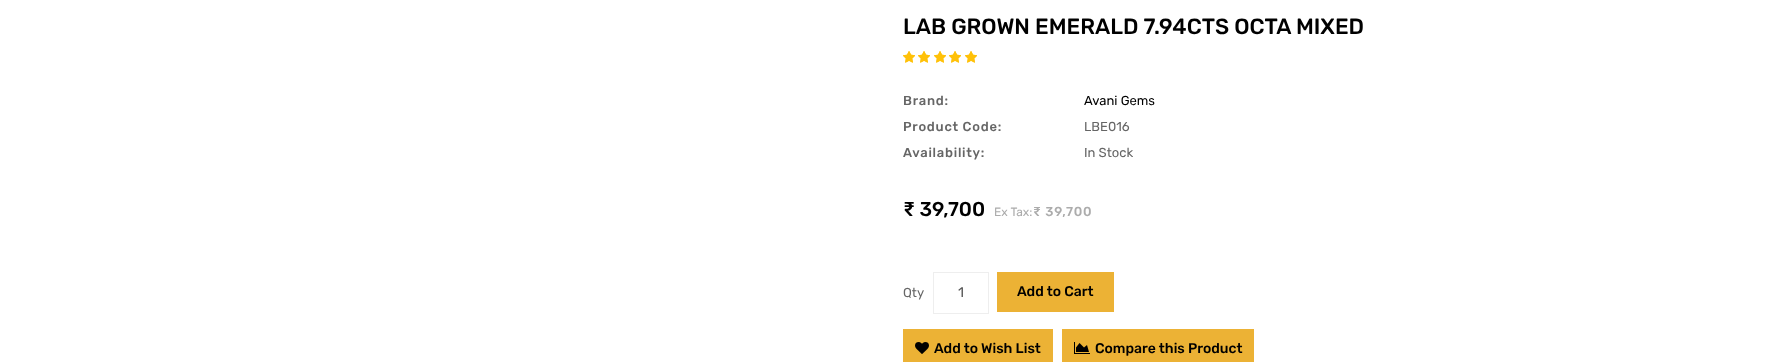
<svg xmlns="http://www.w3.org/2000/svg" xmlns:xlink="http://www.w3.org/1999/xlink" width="1776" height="362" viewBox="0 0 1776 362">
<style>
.cls-1{font:500 22px Rubik;fill:#000000}
.cls-2{font:500 13px Rubik;letter-spacing:0.75px;fill:#666666}
.cls-3{font:13px Rubik;fill:#000000}
.cls-4{font:13px Rubik;fill:#666666}
.cls-5{font:500 20px Rubik;fill:#000000}
.cls-6{font:12px Rubik;fill:#acacac}
.cls-7{font:500 13px Rubik;letter-spacing:0.75px;fill:#acacac}
.cls-8{font:14px Rubik;fill:#555555}
.cls-9{font:500 14px Rubik;fill:#000000}
</style>
<rect width="100%" height="100%" fill="#ffffff"/>
<image xlink:href="image0.png" x="903" y="51" width="12" height="12"/>
<image xlink:href="image1.png" x="903" y="51" width="12" height="12"/>
<image xlink:href="image0.png" x="918" y="51" width="12" height="12"/>
<image xlink:href="image1.png" x="918" y="51" width="12" height="12"/>
<image xlink:href="image0.png" x="934" y="51" width="12" height="12"/>
<image xlink:href="image1.png" x="934" y="51" width="12" height="12"/>
<image xlink:href="image0.png" x="949" y="51" width="12" height="12"/>
<image xlink:href="image1.png" x="949" y="51" width="12" height="12"/>
<image xlink:href="image0.png" x="965" y="51" width="12" height="12"/>
<image xlink:href="image1.png" x="965" y="51" width="12" height="12"/>
<rect fill="none" stroke="#eeeeee" x="933.5" y="272.5" width="55" height="41"/>
<rect fill="#ecb235" x="997" y="272" width="117" height="40"/>
<rect fill="#ecb235" x="903" y="329" width="150" height="33"/>
<image xlink:href="image2.png" x="915" y="342" width="14" height="12"/>
<rect fill="#ecb235" x="1062" y="329" width="192" height="33"/>
<image xlink:href="image3.png" x="1074" y="342" width="16" height="12"/>
<text class="cls-1" x="903" y="34">LAB GROWN EMERALD 7.94CTS OCTA MIXED</text>
<text class="cls-2" x="903" y="105">Brand:</text>
<text class="cls-3" x="1084" y="105">Avani Gems</text>
<text class="cls-2" x="903" y="131">Product Code:</text>
<text class="cls-4" x="1084" y="131">LBE016</text>
<text class="cls-2" x="903" y="157">Availability:</text>
<text class="cls-4" x="1084" y="157">In Stock</text>
<text class="cls-5" x="903" y="216">₹ 39,700</text>
<text class="cls-6" x="994" y="216">Ex Tax:</text>
<text class="cls-7" x="1033" y="216">₹ 39,700</text>
<text class="cls-4" x="903" y="297">Qty</text>
<text class="cls-8" x="958" y="297">1</text>
<text class="cls-9" x="1017" y="296">Add to Cart</text>
<text class="cls-9" x="934" y="353">Add to Wish List</text>
<text class="cls-9" x="1095" y="353">Compare this Product</text>
</svg>
